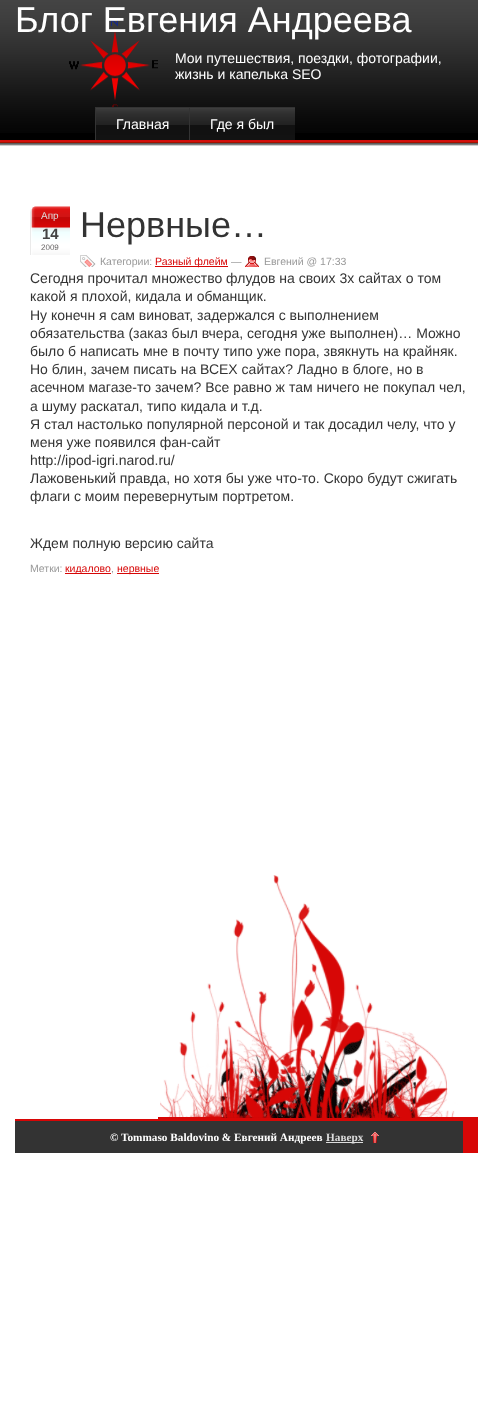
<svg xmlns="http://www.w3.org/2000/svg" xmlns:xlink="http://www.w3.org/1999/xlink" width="478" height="1404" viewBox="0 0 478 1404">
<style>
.cls-1{font:36px Liberation Sans;fill:#ffffff}
.cls-2{font:14px Liberation Sans;fill:#ffffff}
.cls-3{font:10px Liberation Sans;fill:#dddddd}
.cls-4{font:bold 15px Liberation Sans;fill:#444444}
.cls-5{font:8px Liberation Sans;fill:#666666}
.cls-6{font:36px Liberation Sans;fill:#333333}
.cls-7{font:10.5px Liberation Sans;fill:#999999}
.cls-8{font:10.5px Liberation Sans;fill:#d70606}
.cls-9{font:14px Liberation Sans;fill:#333333}
.cls-10{font:bold 11.25px Liberation Serif;fill:#ffffff}
.cls-11{font:bold 11.25px Liberation Serif;fill:#dddddd}
</style>
<rect width="100%" height="100%" fill="#ffffff"/>
<image xlink:href="image0.png" x="0" y="140" width="478" height="6"/>
<image xlink:href="image1.png" x="158" y="875" width="320" height="278"/>
<rect fill="#000000" x="0" y="133" width="478" height="7"/>
<image xlink:href="image2.png" x="0" y="0" width="478" height="133"/>
<image xlink:href="image3.png" x="96" y="108" width="93" height="32"/>
<rect fill="#333333" x="95" y="107" width="200" height="1"/>
<rect fill="#333333" x="95" y="107" width="1" height="33"/>
<image xlink:href="image4.png" x="190" y="108" width="105" height="32"/>
<rect fill="#333333" x="189" y="107" width="1" height="33"/>
<image xlink:href="image5.png" x="30" y="205" width="40" height="50"/>
<image xlink:href="image6.png" x="80" y="255" width="16" height="12"/>
<rect fill="#d70606" x="155" y="266" width="73" height="1"/>
<image xlink:href="image7.png" x="245" y="256" width="14" height="11"/>
<rect fill="#d70606" x="65" y="573" width="46" height="1"/>
<rect fill="#d70606" x="117" y="573" width="42" height="1"/>
<rect fill="#333333" x="15" y="1121" width="448" height="32"/>
<rect fill="#d70606" x="15" y="1119" width="143" height="2"/>
<rect fill="#dddddd" x="326" y="1142" width="37" height="1"/>
<image xlink:href="image8.png" x="371" y="1132" width="8" height="11"/>
<text class="cls-1" x="15" y="32">Блог Евгения Андреева</text>
<text class="cls-2"><tspan x="175" y="63">Мои путешествия, поездки, фотографии,</tspan><tspan x="175" y="79">жизнь и капелька SEO</tspan></text>
<text class="cls-2" x="116" y="129">Главная</text>
<text class="cls-2" x="210" y="129">Где я был</text>
<text class="cls-3" x="41" y="219">Апр</text>
<text class="cls-4" x="42" y="239">14</text>
<text class="cls-5" x="41" y="250">2009</text>
<text class="cls-6" x="80" y="237">Нервные…</text>
<text class="cls-7" x="100" y="265">Категории:</text>
<text class="cls-8" x="155" y="265">Разный флейм</text>
<text class="cls-7" x="231" y="265">—</text>
<text class="cls-7" x="264" y="265">Евгений @ 17:33</text>
<text class="cls-9"><tspan x="30" y="283">Сегодня прочитал множество флудов на своих 3х сайтах о том</tspan><tspan x="30" y="301">какой я плохой, кидала и обманщик.</tspan><tspan x="30" y="320">Ну конечн я сам виноват, задержался с выполнением</tspan><tspan x="30" y="338">обязательства (заказ был вчера, сегодня уже выполнен)… Можно</tspan><tspan x="30" y="356">было б написать мне в почту типо уже пора, звякнуть на крайняк.</tspan><tspan x="30" y="374">Но блин, зачем писать на ВСЕХ сайтах? Ладно в блоге, но в</tspan><tspan x="30" y="392">асечном магазе-то зачем? Все равно ж там ничего не покупал чел,</tspan><tspan x="30" y="411">а шуму раскатал, типо кидала и т.д.</tspan><tspan x="30" y="429">Я стал настолько популярной персоной и так досадил челу, что у</tspan><tspan x="30" y="447">меня уже появился фан-сайт</tspan><tspan x="30" y="465">http://ipod-igri.narod.ru/</tspan><tspan x="30" y="483">Лажовенький правда, но хотя бы уже что-то. Скоро будут сжигать</tspan><tspan x="30" y="501">флаги с моим перевернутым портретом.</tspan></text>
<text class="cls-9" x="30" y="548">Ждем полную версию сайта</text>
<text class="cls-7" x="30" y="572">Метки:</text>
<text class="cls-8" x="65" y="572">кидалово</text>
<text class="cls-7" x="111" y="572">,</text>
<text class="cls-8" x="117" y="572">нервные</text>
<text class="cls-10" x="110" y="1141">© Tommaso Baldovino &amp; Евгений Андреев</text>
<text class="cls-11" x="326" y="1141">Наверх</text>
</svg>
